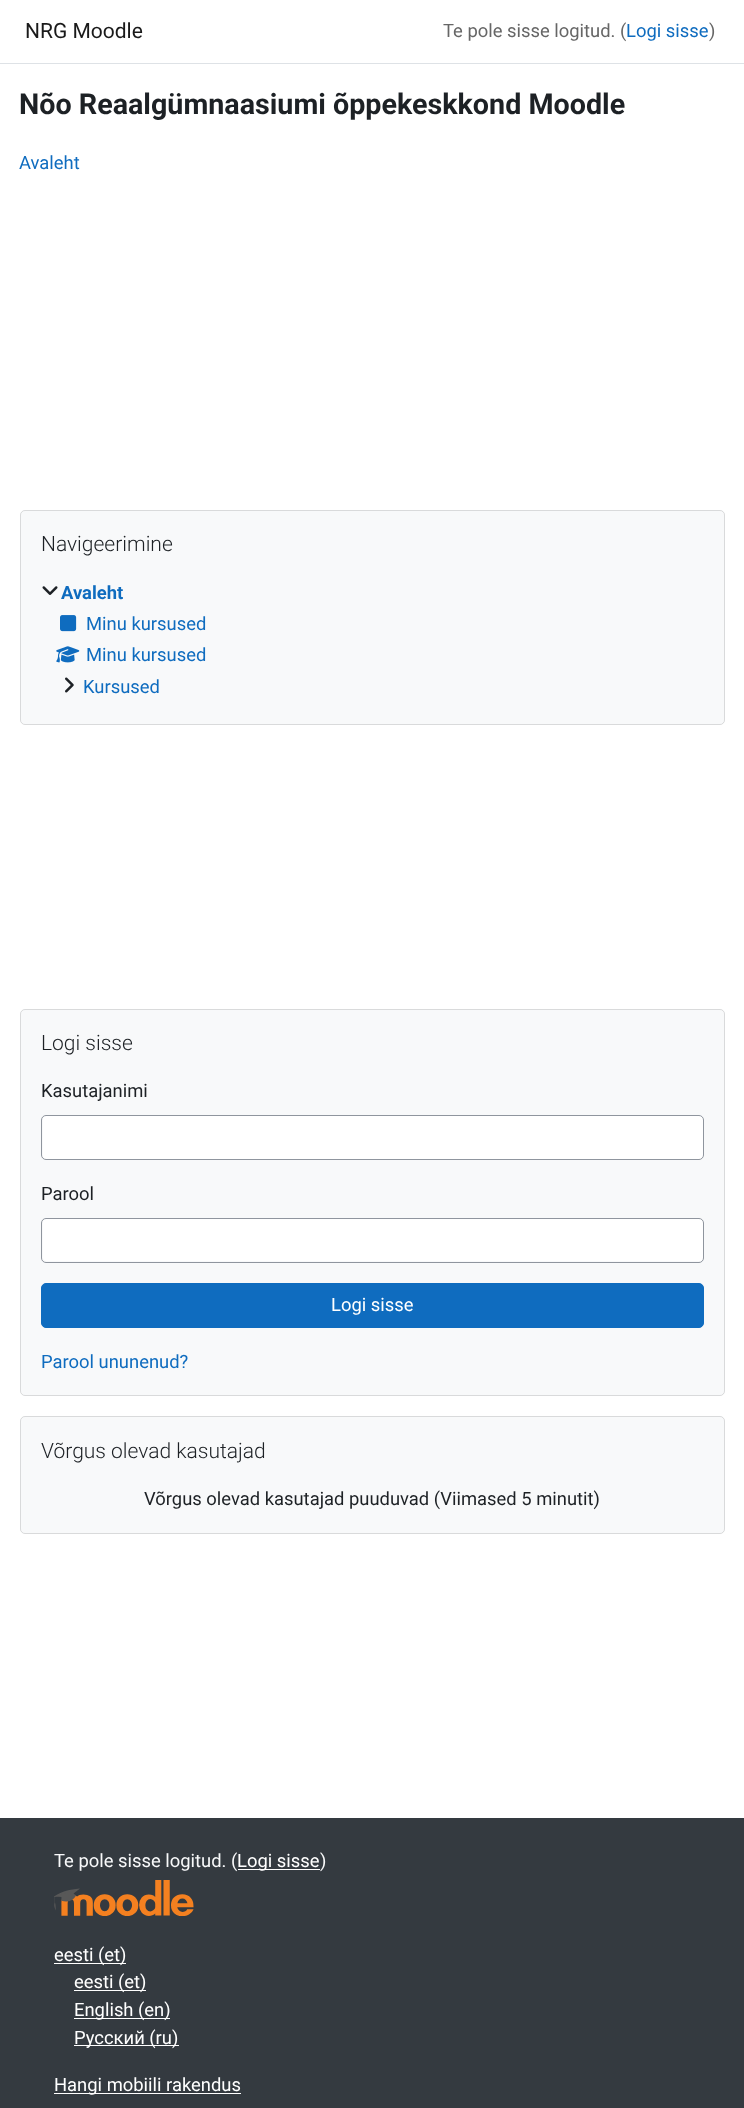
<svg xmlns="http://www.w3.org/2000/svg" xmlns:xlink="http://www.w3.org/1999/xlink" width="744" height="2108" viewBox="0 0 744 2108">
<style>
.cls-1{font:21px Roboto;fill:#1a1a1a}
.cls-2{font:18.4px Roboto;fill:#666666}
.cls-3{font:18.4px Roboto;fill:#0f6cbf}
.cls-4{font:bold 28.7px Roboto;fill:#1d2125}
.cls-5{font:300 21px Roboto;fill:#1d2125}
.cls-6{font:bold 18.4px Roboto;fill:#0f6cbf}
.cls-7{font:18.4px Roboto;fill:#1d2125}
.cls-8{font:18.4px Roboto;fill:#ffffff}
.cls-9{font:18.4px Roboto;fill:#f8f9fa}
</style>
<rect width="100%" height="100%" fill="#ffffff"/>
<rect fill="#dee2e6" x="0" y="63" width="744" height="1"/>
<rect fill="#f8f9fa" x="20" y="510" width="705" height="215" rx="5"/>
<rect fill="none" stroke="#000000" stroke-opacity="0.12" x="20.5" y="510.5" width="704" height="214" rx="4.5"/>
<image xlink:href="image0.png" x="42" y="586" width="16" height="9"/>
<image xlink:href="image1.png" x="60" y="615" width="17" height="17"/>
<image xlink:href="image2.png" x="56" y="646" width="24" height="17"/>
<image xlink:href="image3.png" x="65" y="677" width="9" height="16"/>
<rect fill="#f8f9fa" x="20" y="1009" width="705" height="387" rx="5"/>
<rect fill="none" stroke="#000000" stroke-opacity="0.12" x="20.5" y="1009.5" width="704" height="386" rx="4.5"/>
<rect fill="#ffffff" x="43" y="1116" width="660" height="43" rx="4"/>
<rect fill="none" stroke="#8f959e" x="41.5" y="1115.5" width="662" height="44" rx="4.5"/>
<rect fill="#ffffff" x="43" y="1219" width="660" height="42" rx="4"/>
<rect fill="none" stroke="#8f959e" x="41.5" y="1218.5" width="662" height="44" rx="4.5"/>
<rect fill="#0f6cbf" stroke="#0f6cbf" x="41.5" y="1283.5" width="662" height="44" rx="4.5"/>
<rect fill="#f8f9fa" x="20" y="1416" width="705" height="118" rx="5"/>
<rect fill="none" stroke="#000000" stroke-opacity="0.12" x="20.5" y="1416.5" width="704" height="117" rx="4.5"/>
<rect fill="#343a40" x="0" y="1818" width="744" height="290"/>
<rect fill="#ffffff" x="238" y="1869" width="82" height="1"/>
<image xlink:href="image4.png" x="54" y="1880" width="140" height="36"/>
<rect fill="#ffffff" x="54" y="1963" width="72" height="1"/>
<rect fill="#ffffff" x="74" y="1990" width="72" height="1"/>
<rect fill="#ffffff" x="74" y="2018" width="96" height="1"/>
<rect fill="#ffffff" x="74" y="2045" width="105" height="1"/>
<rect fill="#ffffff" x="54" y="2093" width="187" height="1"/>
<text class="cls-1" x="25" y="38">NRG Moodle</text>
<text class="cls-2" x="443" y="37">Te pole sisse logitud. (</text>
<text class="cls-3" x="626" y="37">Logi sisse</text>
<text class="cls-2" x="709" y="37">)</text>
<text class="cls-4" x="19" y="114">Nõo Reaalgümnaasiumi õppekeskkond Moodle</text>
<text class="cls-3" x="19" y="169">Avaleht</text>
<text class="cls-5" x="41" y="551">Navigeerimine</text>
<text class="cls-6" x="61" y="599">Avaleht</text>
<text class="cls-3"><tspan x="86" y="630">Minu kursused</tspan><tspan x="86" y="661">Minu kursused</tspan></text>
<text class="cls-3" x="83" y="693">Kursused</text>
<text class="cls-5" x="41" y="1050">Logi sisse</text>
<text class="cls-7" x="41" y="1097">Kasutajanimi</text>
<text class="cls-7" x="41" y="1200">Parool</text>
<text class="cls-8" x="331" y="1311">Logi sisse</text>
<text class="cls-3" x="41" y="1368">Parool ununenud?</text>
<text class="cls-5" x="41" y="1458">Võrgus olevad kasutajad</text>
<text class="cls-7" x="144" y="1505">Võrgus olevad kasutajad puuduvad (Viimased 5 minutit)</text>
<text class="cls-9" x="54" y="1867">Te pole sisse logitud. (</text>
<text class="cls-8" x="237" y="1867">Logi sisse</text>
<text class="cls-9" x="320" y="1867">)</text>
<text class="cls-8" x="54" y="1961">eesti (et)</text>
<text class="cls-8"><tspan x="74" y="1988">eesti (et)</tspan><tspan x="74" y="2016">English (en)</tspan><tspan x="74" y="2044">Русский (ru)</tspan></text>
<text class="cls-8" x="54" y="2091">Hangi mobiili rakendus</text>
</svg>
